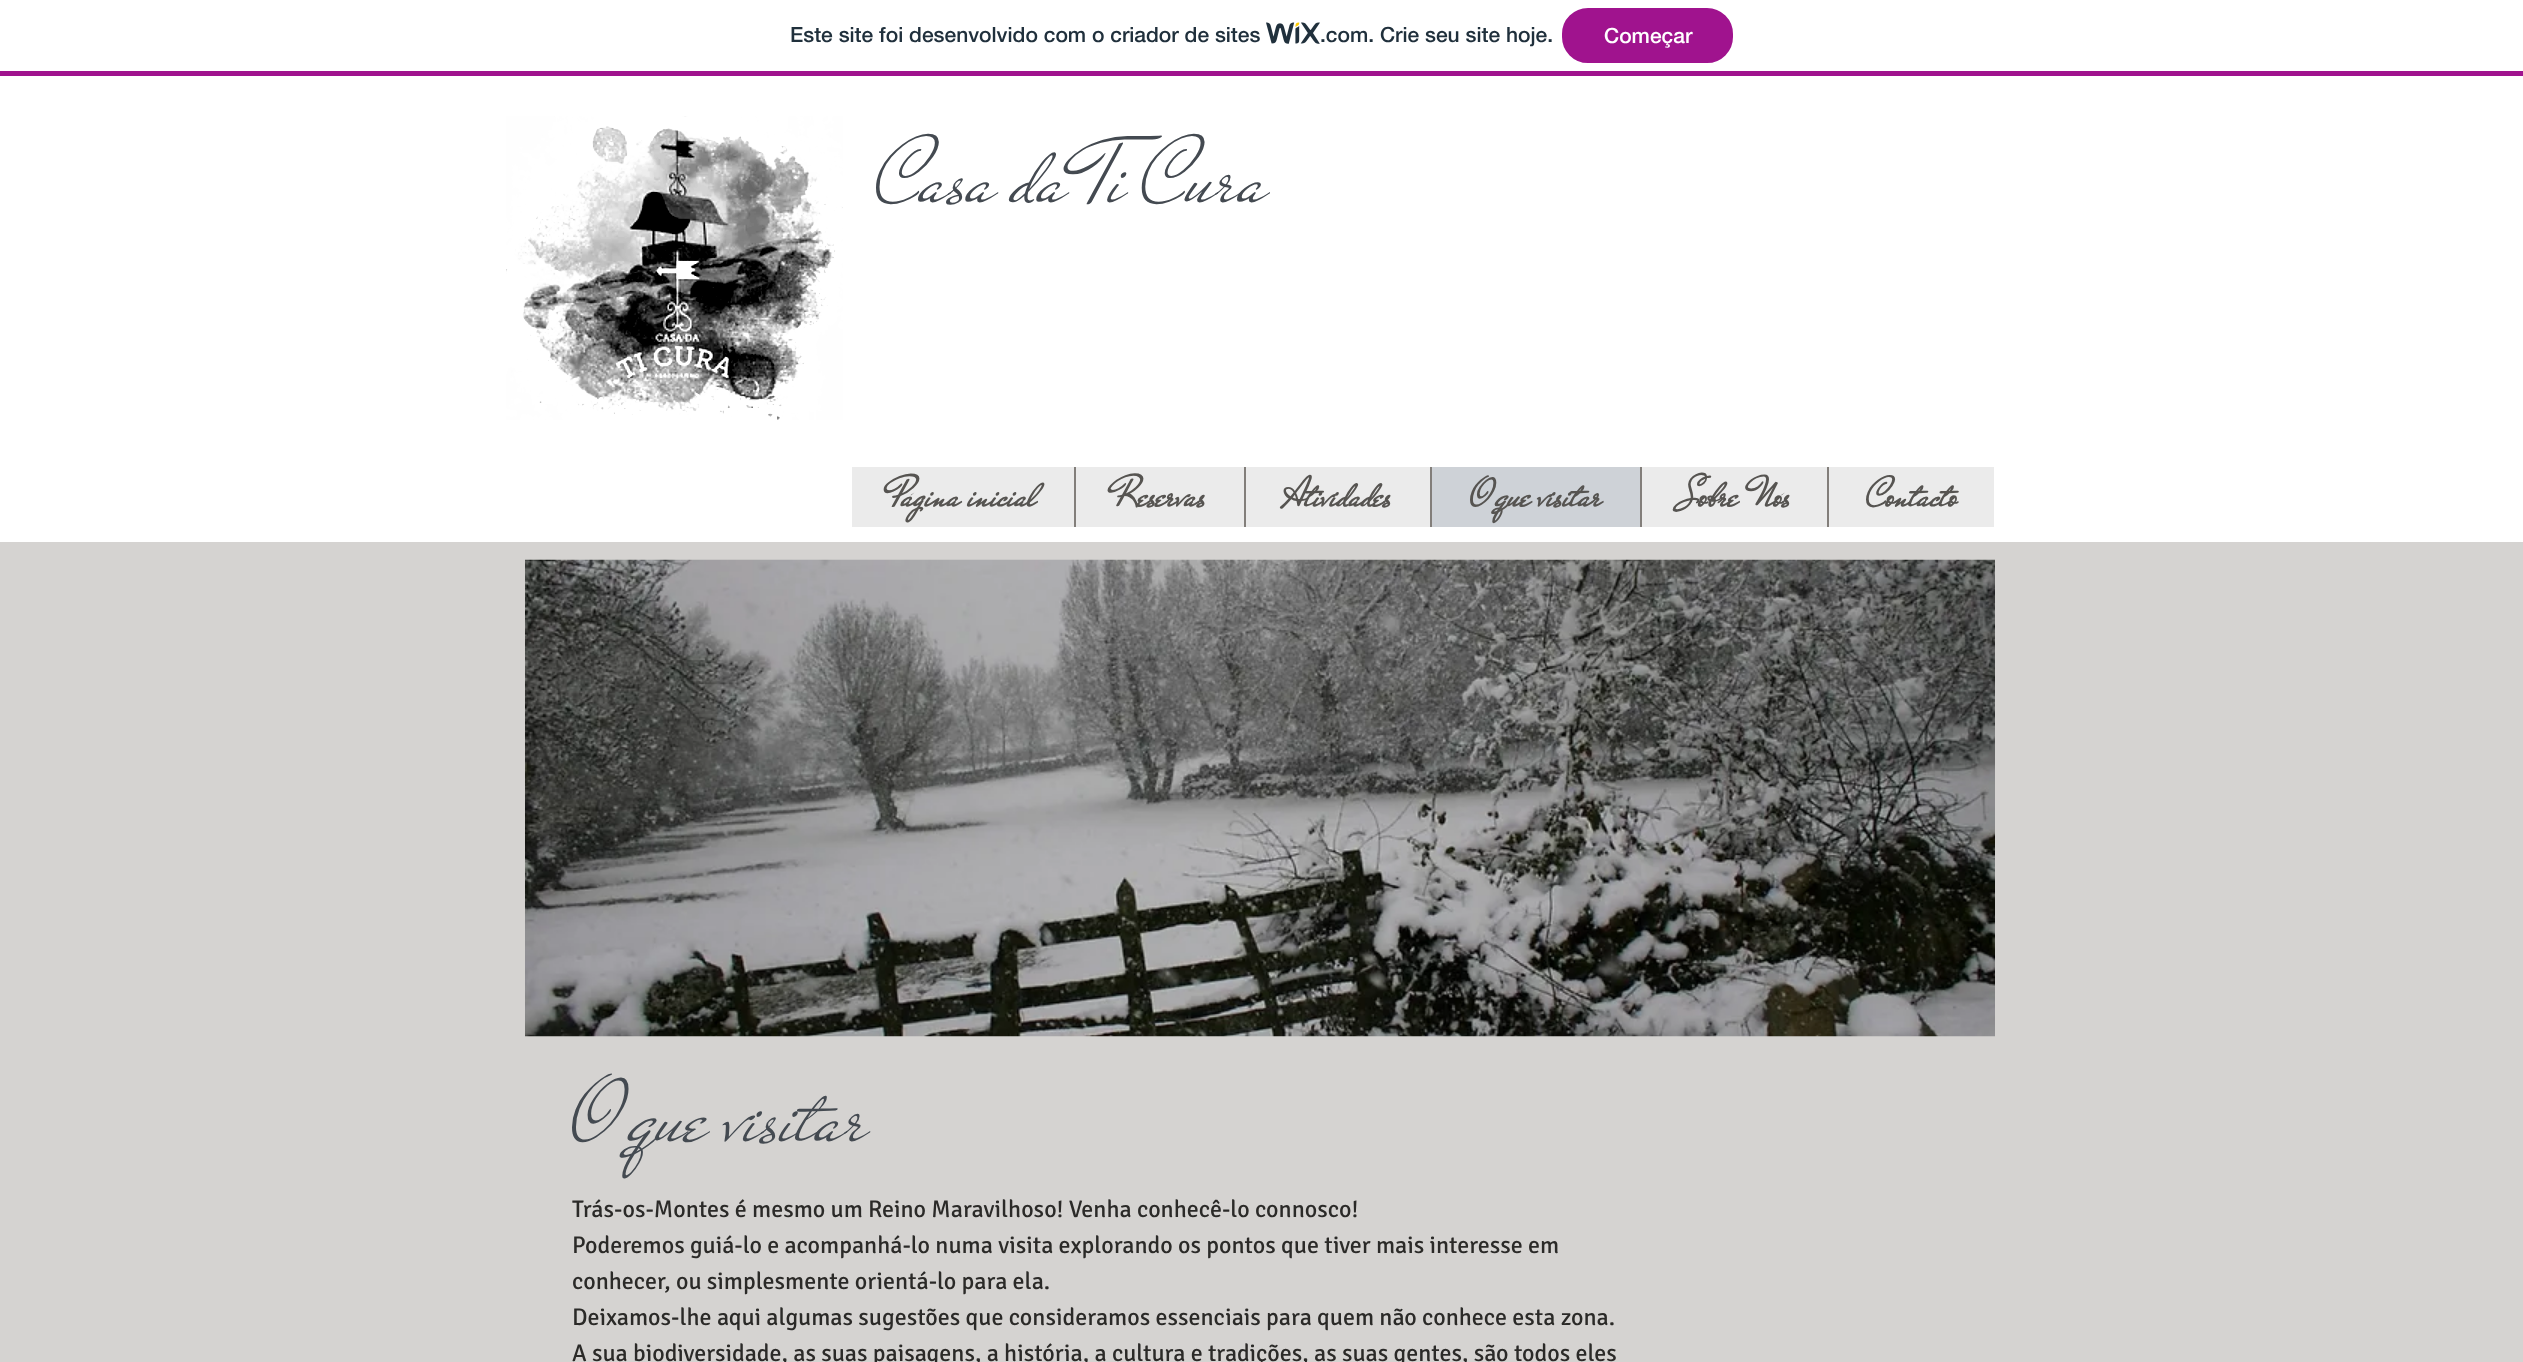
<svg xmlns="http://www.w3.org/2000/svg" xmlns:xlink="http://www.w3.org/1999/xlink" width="2523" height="1362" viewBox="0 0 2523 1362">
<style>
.cls-1{font:500 21px 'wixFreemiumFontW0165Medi';fill:#20303c}
.cls-2{font:500 21px 'wixFreemiumFontW0165Medi';fill:#ffffff}
.cls-3{font:94.5px Mr De Haviland;fill:#444a51}
.cls-4{font:bold 42px Mr De Haviland;fill:#565451}
.cls-5{font:24px Signika;fill:#2b2a28}
</style>
<rect width="100%" height="100%" fill="#ffffff"/>
<rect fill="#a0138e" x="0" y="71" width="2523" height="5"/>
<image xlink:href="image0.png" x="1266" y="22" width="54" height="22"/>
<rect fill="#a0138e" stroke="#a0138e" stroke-width="2" x="1563" y="9" width="169" height="53" rx="25"/>
<image xlink:href="image1.png" x="506" y="116" width="337" height="304"/>
<rect fill="#ebebeb" x="852" y="467" width="1142" height="60"/>
<rect fill="#827e7a" x="1074" y="467" width="2" height="60"/>
<rect fill="#827e7a" x="1244" y="467" width="2" height="60"/>
<rect fill="#ced2d7" x="1432" y="467" width="208" height="60"/>
<rect fill="#827e7a" x="1430" y="467" width="2" height="60"/>
<rect fill="#827e7a" x="1640" y="467" width="2" height="60"/>
<rect fill="#827e7a" x="1827" y="467" width="2" height="60"/>
<rect fill="#d5d3d1" x="0" y="542" width="2523" height="820"/>
<image xlink:href="image2.png" x="525" y="559" width="1470" height="478"/>
<text class="cls-1" x="790" y="42">Este site foi desenvolvido com o criador de sites</text>
<text class="cls-1" x="1320" y="42">.com. Crie seu site hoje.</text>
<text class="cls-2" x="1604" y="43">Começar</text>
<text class="cls-3" x="876" y="201">Casa da Ti Cura</text>
<text class="cls-4" x="890" y="506">Página inicial</text>
<text class="cls-4" x="1114" y="506">Reservas</text>
<text class="cls-4" x="1283" y="506">Atividades</text>
<text class="cls-4" x="1470" y="506">O que visitar</text>
<text class="cls-4" x="1679" y="506">Sobre Nós</text>
<text class="cls-4" x="1866" y="506">Contacto</text>
<text class="cls-3" x="572" y="1140">O que visitar</text>
<text class="cls-5"><tspan x="572" y="1217">Trás-os-Montes é mesmo um Reino Maravilhoso! Venha conhecê-lo connosco!</tspan><tspan x="572" y="1253">Poderemos guiá-lo e acompanhá-lo numa visita explorando os pontos que tiver mais interesse em</tspan><tspan x="572" y="1289">conhecer, ou simplesmente orientá-lo para ela.</tspan><tspan x="572" y="1325">Deixamos-lhe aqui algumas sugestões que consideramos essenciais para quem não conhece esta zona.</tspan><tspan x="572" y="1361">A sua biodiversidade, as suas paisagens, a história, a cultura e tradições, as suas gentes, são todos eles</tspan></text>
</svg>
